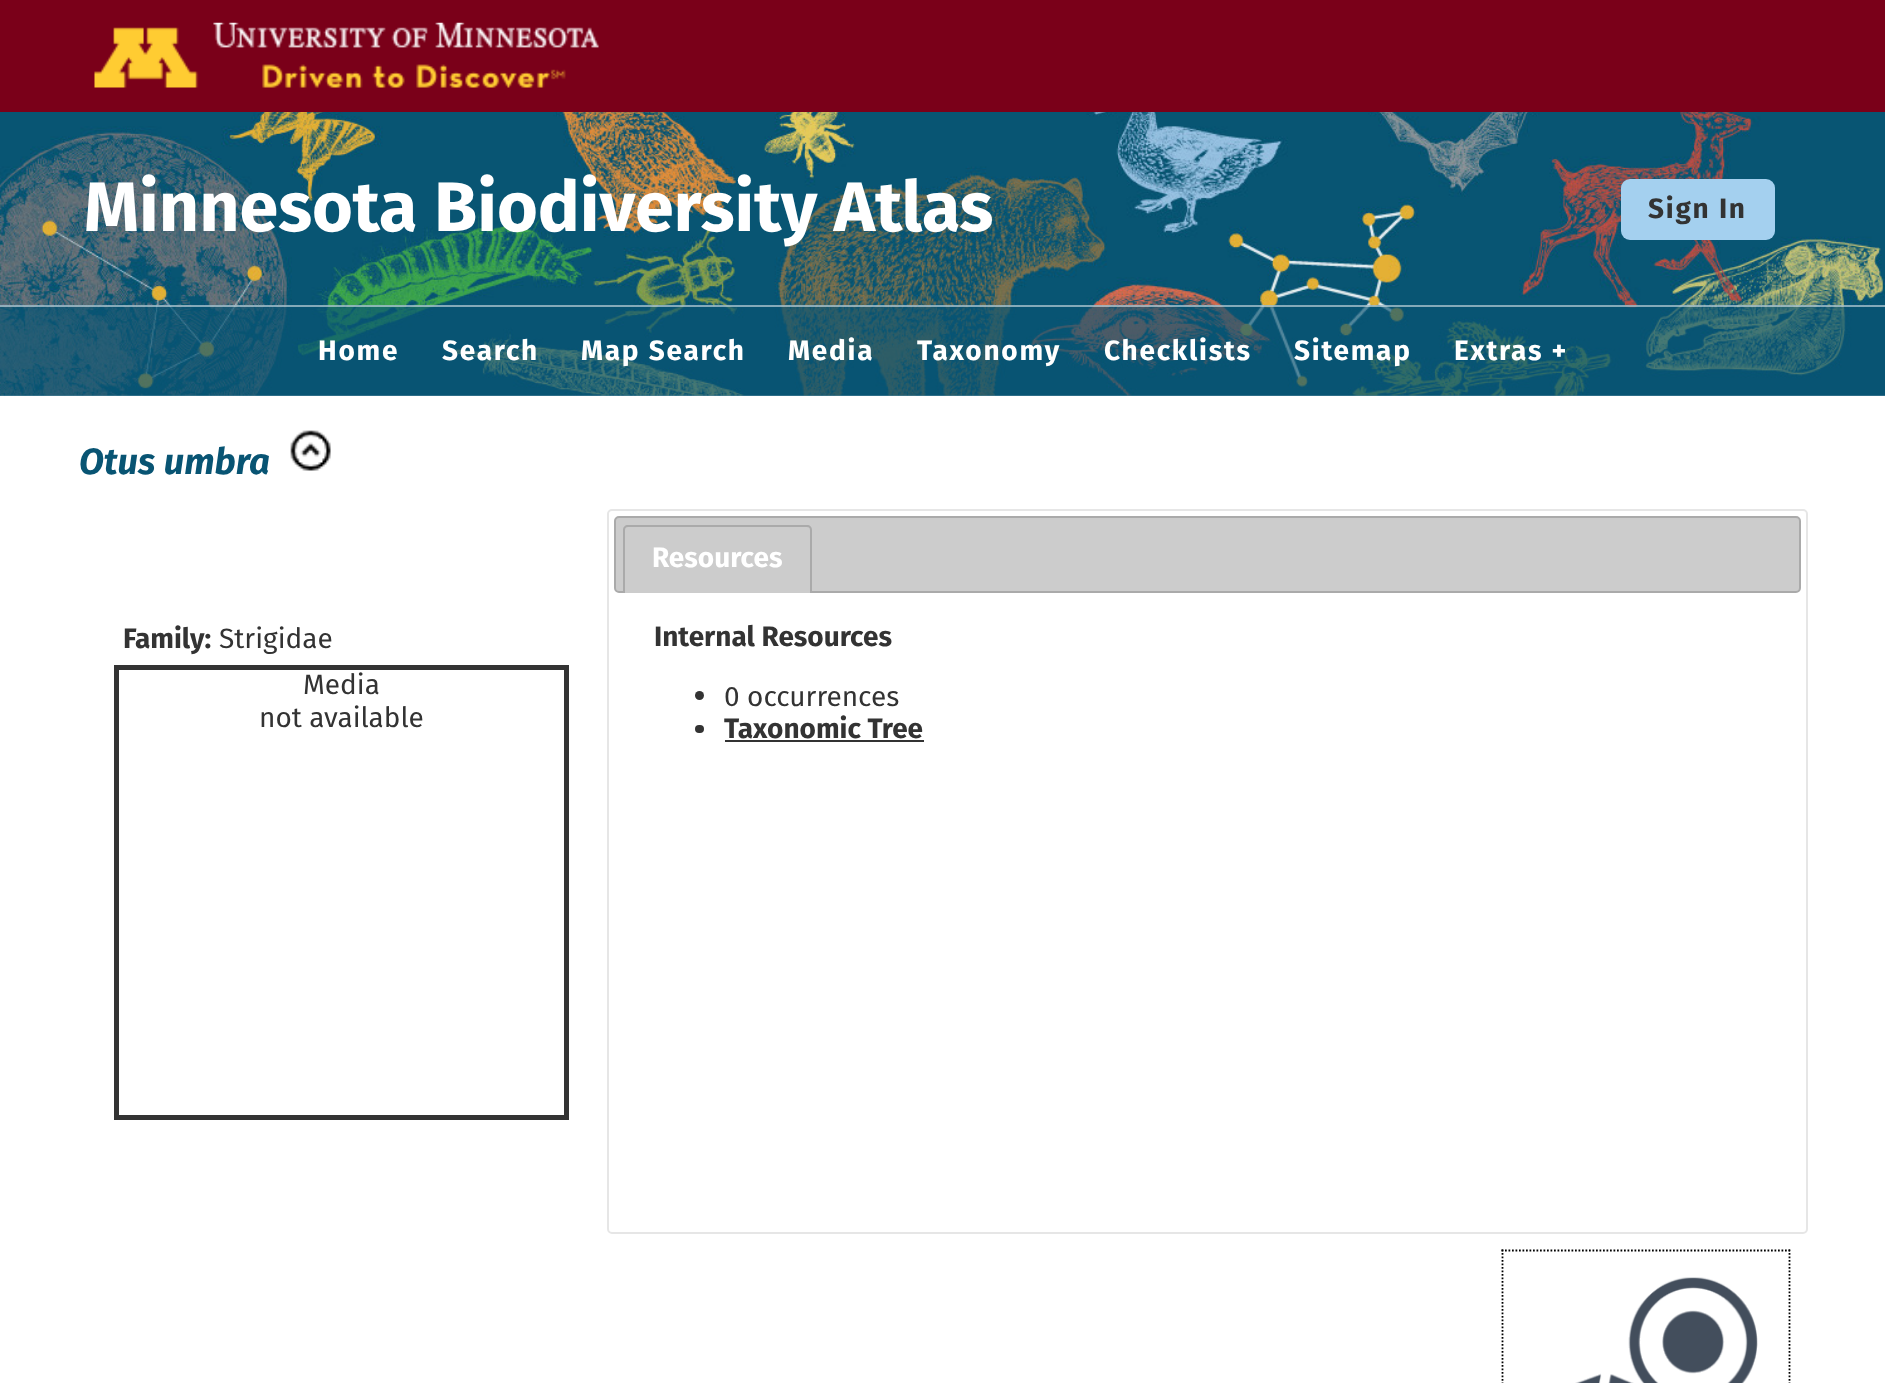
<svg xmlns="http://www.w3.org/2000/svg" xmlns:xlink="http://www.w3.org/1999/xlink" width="1885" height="1383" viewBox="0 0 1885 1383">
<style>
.cls-1{font:bold 70px Fira Sans;fill:#ffffff}
.cls-2{font:bold 28px Fira Sans;letter-spacing:1.75px;fill:#333333}
.cls-3{font:bold 28px Fira Sans;letter-spacing:1.75px;fill:#ffffff}
.cls-4{font:italic bold 36.5px Fira Sans;fill:#085473}
.cls-5{font:bold 28px Fira Sans;fill:#333333}
.cls-6{font:28px Fira Sans;fill:#333333}
.cls-7{font:bold 28px Fira Sans;fill:#ffffff}
</style>
<rect width="100%" height="100%" fill="#ffffff"/>
<rect fill="#7a0019" x="0" y="0" width="1885" height="112"/>
<image xlink:href="image0.png" x="94" y="22" width="505" height="66"/>
<image xlink:href="image1.png" x="0" y="112" width="1885" height="284"/>
<rect fill="#085473" fill-opacity="0.1" x="0" y="112" width="1883" height="193"/>
<rect fill="#a4d0ef" x="1621" y="179" width="154" height="61" rx="9"/>
<rect fill="#085473" fill-opacity="0.7" x="0" y="305" width="1885" height="91"/>
<rect fill="#ffffff" fill-opacity="0.5" x="0" y="305" width="1885" height="2"/>
<image xlink:href="image2.png" x="290" y="430" width="41" height="41"/>
<rect fill="none" stroke="#333333" stroke-width="5" x="116.5" y="667.5" width="450" height="450"/>
<rect fill="none" stroke="#e6e6e6" stroke-width="2" x="608" y="510" width="1199" height="723" rx="4"/>
<rect fill="#cccccc" stroke="#aaaaaa" stroke-width="2" x="615" y="517" width="1185" height="75" rx="4"/>
<path fill="#cccccc" d="M629 527H806C808 527 810 529 810 531V593H625V531C625 529 627 527 629 527Z"/>
<path fill="#aaaaaa" fill-rule="evenodd" d="M628 525H807C810 525 812 527 812 530V593H623V530C623 527 625 525 628 525ZM628 527H807C809 527 810 528 810 530V593H625V530C625 528 626 527 628 527Z"/>
<circle fill="#333333" cx="699.5" cy="695.5" r="4.5"/>
<rect fill="#333333" x="695" y="725" width="9" height="8" rx="4"/>
<rect fill="#333333" x="725" y="740" width="199" height="2"/>
<path fill="none" stroke="#000000" stroke-width="1.8" stroke-dasharray="1.75 1.75" d="M1501.5 1250.5H1790"/>
<path fill="none" stroke="#000000" stroke-width="1.8" stroke-dasharray="1.75 1.75" d="M1502.5 1249.5V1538"/>
<image xlink:href="image3.png" x="1575" y="1277" width="183" height="106"/>
<path fill="none" stroke="#000000" stroke-width="1.8" stroke-dasharray="1.75 1.75" d="M1789.5 1249.5V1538"/>
<text class="cls-1" x="84" y="231">Minnesota Biodiversity Atlas</text>
<text class="cls-2" x="1648" y="218">Sign In</text>
<text class="cls-3" x="318" y="360">Home</text>
<text class="cls-3" x="442" y="360">Search</text>
<text class="cls-3" x="581" y="360">Map Search</text>
<text class="cls-3" x="788" y="360">Media</text>
<text class="cls-3" x="917" y="360">Taxonomy</text>
<text class="cls-3" x="1104" y="360">Checklists</text>
<text class="cls-3" x="1294" y="360">Sitemap</text>
<text class="cls-3" x="1454" y="360">Extras +</text>
<text class="cls-4" x="79" y="474">Otus umbra</text>
<text class="cls-5" x="123" y="648">Family:</text>
<text class="cls-6" x="219" y="648">Strigidae</text>
<text class="cls-6" x="303" y="694">Media</text>
<text class="cls-6" x="259" y="727">not available</text>
<text class="cls-7" x="652" y="567">Resources</text>
<text class="cls-5" x="654" y="646">Internal Resources</text>
<text class="cls-6" x="724" y="706">0 occurrences</text>
<text class="cls-5" x="724" y="738">Taxonomic Tree</text>
</svg>
